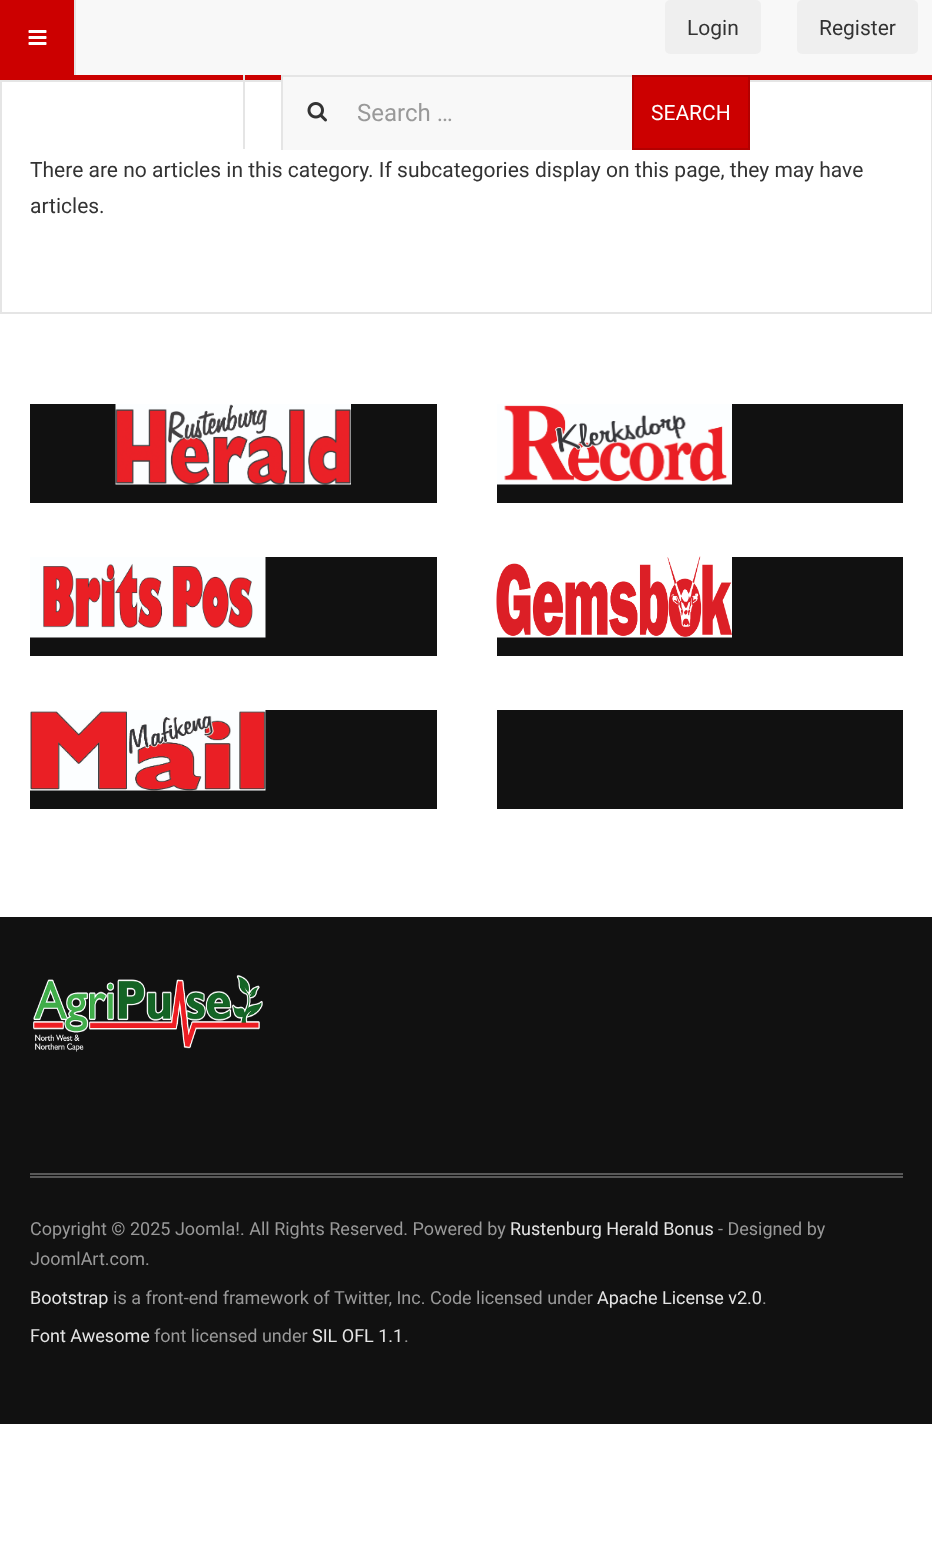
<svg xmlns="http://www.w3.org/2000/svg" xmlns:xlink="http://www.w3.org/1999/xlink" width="932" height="1549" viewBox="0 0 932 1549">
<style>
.cls-1{font:21px Roboto;fill:#333333}
.cls-2{font:24px Roboto;fill:#999999}
.cls-3{font:21px Roboto;fill:#ffffff}
.cls-4{font:18px Roboto;fill:#999999}
.cls-5{font:18px Roboto;fill:#e5e5e5}
</style>
<rect width="100%" height="100%" fill="#ffffff"/>
<rect fill="#f8f8f8" x="76" y="0" width="856" height="75"/>
<rect fill="#efefef" x="665" y="0" width="96" height="54" rx="5"/>
<rect fill="#efefef" x="797" y="0" width="121" height="54" rx="5"/>
<rect fill="#cc0000" x="0" y="75" width="932" height="5"/>
<rect fill="#cc0000" x="0" y="0" width="74" height="75"/>
<rect fill="#e5e5e5" x="74" y="0" width="2" height="75"/>
<image xlink:href="image0.png" x="28" y="30" width="19" height="15"/>
<rect fill="none" stroke="#e5e5e5" stroke-width="2" x="1" y="81" width="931" height="232"/>
<rect fill="#e5e5e5" x="243" y="75" width="2" height="74"/>
<rect fill="#f8f8f8" x="283" y="77" width="349" height="73"/>
<image xlink:href="image1.png" x="307" y="102" width="20" height="20"/>
<rect fill="#e5e5e5" x="282" y="75" width="350" height="2"/>
<rect fill="#e5e5e5" x="281" y="75" width="2" height="75"/>
<rect fill="#cc0000" x="634" y="80" width="114" height="68"/>
<rect fill="none" stroke="#b30000" stroke-width="2" x="633" y="76" width="116" height="73"/>
<rect fill="#111111" x="30" y="404" width="407" height="99"/>
<image xlink:href="image2.png" x="115" y="404" width="236" height="81"/>
<rect fill="#111111" x="497" y="404" width="406" height="99"/>
<image xlink:href="image3.png" x="497" y="404" width="235" height="81"/>
<rect fill="#111111" x="30" y="557" width="407" height="99"/>
<image xlink:href="image4.png" x="30" y="557" width="236" height="81"/>
<rect fill="#111111" x="497" y="557" width="406" height="99"/>
<image xlink:href="image5.png" x="496" y="556" width="236" height="82"/>
<rect fill="#111111" x="30" y="710" width="407" height="99"/>
<image xlink:href="image6.png" x="30" y="710" width="236" height="81"/>
<rect fill="#111111" x="497" y="710" width="406" height="99"/>
<rect fill="#111111" x="0" y="917" width="932" height="507"/>
<image xlink:href="image7.png" x="33" y="974" width="230" height="78"/>
<rect fill="#585858" x="30" y="1173" width="873" height="2"/>
<rect fill="#585858" x="30" y="1176" width="873" height="2"/>
<text class="cls-1" x="687" y="35">Login</text>
<text class="cls-1" x="819" y="35">Register</text>
<text class="cls-2" x="357" y="121">Search …</text>
<text class="cls-3" x="651" y="120">SEARCH</text>
<text class="cls-1"><tspan x="30" y="177">There are no articles in this category. If subcategories display on this page, they may have</tspan><tspan x="30" y="213">articles.</tspan></text>
<text class="cls-4" x="30" y="1235">Copyright © 2025 Joomla!. All Rights Reserved. Powered by</text>
<text class="cls-5" x="510" y="1235">Rustenburg Herald Bonus</text>
<text class="cls-4" x="718" y="1235">- Designed by</text>
<text class="cls-4" x="30" y="1265">JoomlArt.com.</text>
<text class="cls-5" x="30" y="1304">Bootstrap</text>
<text class="cls-4" x="113" y="1304">is a front-end framework of Twitter, Inc. Code licensed under</text>
<text class="cls-5" x="597" y="1304">Apache License v2.0</text>
<text class="cls-4" x="762" y="1304">.</text>
<text class="cls-5" x="30" y="1342">Font Awesome</text>
<text class="cls-4" x="154" y="1342">font licensed under</text>
<text class="cls-5" x="312" y="1342">SIL OFL 1.1</text>
<text class="cls-4" x="404" y="1342">.</text>
</svg>
